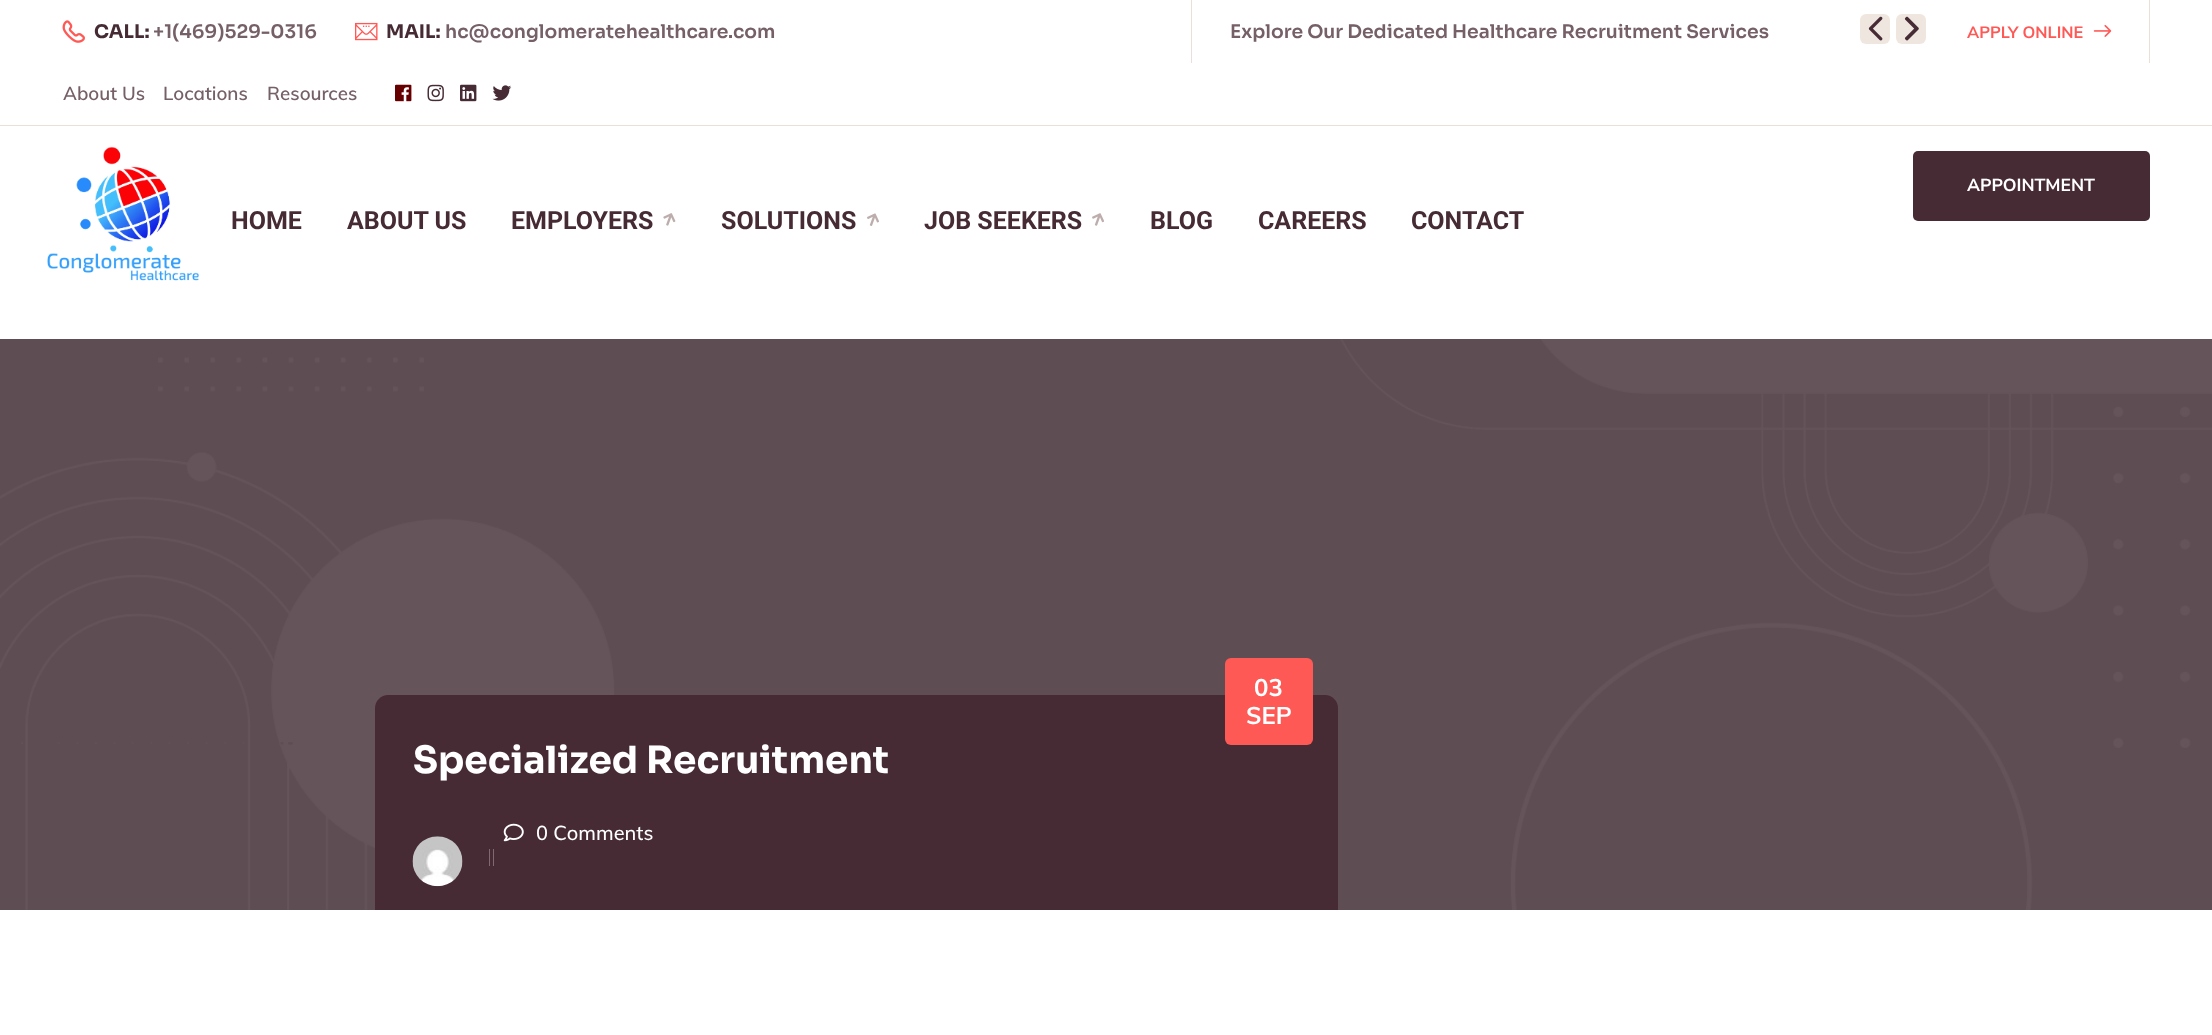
<svg xmlns="http://www.w3.org/2000/svg" xmlns:xlink="http://www.w3.org/1999/xlink" width="2212" height="1035" viewBox="0 0 2212 1035">
<style>
.cls-1{font:bold 18.75px Sora;fill:#462b34}
.cls-2{font:600 18.75px Sora;fill:#766068}
.cls-3{font:bold 16.25px Muli;fill:#ff5956}
.cls-4{font:600 18.75px Muli;fill:#766068}
.cls-5{font:bold 17.5px Nunito Sans;fill:#ffffff}
.cls-6{font:bold 25px Roboto;fill:#462b34}
.cls-7{font:bold 24px Muli;fill:#ffffff}
.cls-8{font:bold 37.5px Sora;fill:#ffffff}
.cls-9{font:500 20px Muli;fill:#ffffff}
</style>
<rect width="100%" height="100%" fill="#ffffff"/>
<rect fill="#eae0d9" x="0" y="125" width="2212" height="1"/>
<image xlink:href="image0.png" x="62" y="20" width="23" height="23"/>
<image xlink:href="image1.png" x="355" y="22" width="23" height="19"/>
<rect fill="#eae0d9" x="2149" y="0" width="1" height="63"/>
<rect fill="#eae0d9" x="1191" y="0" width="1" height="63"/>
<rect fill="#f0e6e0" x="1860" y="14" width="30" height="30" rx="6"/>
<image xlink:href="image2.png" x="1868" y="16" width="15" height="25"/>
<rect fill="#f0e6e0" x="1896" y="14" width="30" height="30" rx="6"/>
<image xlink:href="image3.png" x="1904" y="16" width="15" height="25"/>
<image xlink:href="image4.png" x="2093" y="25" width="19" height="12"/>
<image xlink:href="image5.png" x="395" y="84" width="17" height="18"/>
<image xlink:href="image6.png" x="427" y="84" width="17" height="18"/>
<image xlink:href="image7.png" x="460" y="84" width="17" height="18"/>
<image xlink:href="image8.png" x="492" y="85" width="20" height="16"/>
<rect fill="#462b34" x="1913" y="151" width="237" height="70" rx="5"/>
<image xlink:href="image9.png" x="47" y="146" width="152" height="135"/>
<image xlink:href="image10.png" x="663" y="213" width="13" height="13"/>
<image xlink:href="image11.png" x="867" y="213" width="12" height="13"/>
<image xlink:href="image12.png" x="1092" y="213" width="12" height="13"/>
<rect fill="#5e4d52" x="0" y="339" width="2212" height="571"/>
<image xlink:href="image13.png" x="0" y="339" width="2212" height="571"/>
<path fill="#462b34" d="M388 695H1325C1332 695 1338 701 1338 708V910H375V708C375 701 381 695 388 695Z"/>
<rect fill="#ff5956" x="1225" y="658" width="88" height="87" rx="6"/>
<image xlink:href="image14.png" x="503" y="823" width="21" height="19"/>
<image xlink:href="image15.png" x="412" y="836" width="51" height="51"/>
<rect fill="#7e6b71" x="489" y="849" width="1" height="17"/>
<rect fill="#7e6b71" x="493" y="849" width="1" height="17"/>
<text class="cls-1" x="94" y="38">CALL:</text>
<text class="cls-2" x="153" y="38">+1(469)529-0316</text>
<text class="cls-1" x="386" y="38">MAIL:</text>
<text class="cls-2" x="445" y="38">hc@conglomeratehealthcare.com</text>
<text class="cls-2" x="1230" y="38">Explore Our Dedicated Healthcare Recruitment Services</text>
<text class="cls-3" x="1967" y="38">APPLY ONLINE</text>
<text class="cls-4" x="63" y="100">About Us</text>
<text class="cls-4" x="163" y="100">Locations</text>
<text class="cls-4" x="267" y="100">Resources</text>
<text class="cls-5" x="1967" y="191">APPOINTMENT</text>
<text class="cls-6" x="231" y="229">HOME</text>
<text class="cls-6" x="347" y="229">ABOUT US</text>
<text class="cls-6" x="511" y="229">EMPLOYERS</text>
<text class="cls-6" x="721" y="229">SOLUTIONS</text>
<text class="cls-6" x="924" y="229">JOB SEEKERS</text>
<text class="cls-6" x="1150" y="229">BLOG</text>
<text class="cls-6" x="1258" y="229">CAREERS</text>
<text class="cls-6" x="1411" y="229">CONTACT</text>
<text class="cls-7" x="1254" y="696">03</text>
<text class="cls-7" x="1246" y="724">SEP</text>
<text class="cls-8" x="413" y="773">Specialized Recruitment</text>
<text class="cls-9" x="536" y="840">0 Comments</text>
</svg>
